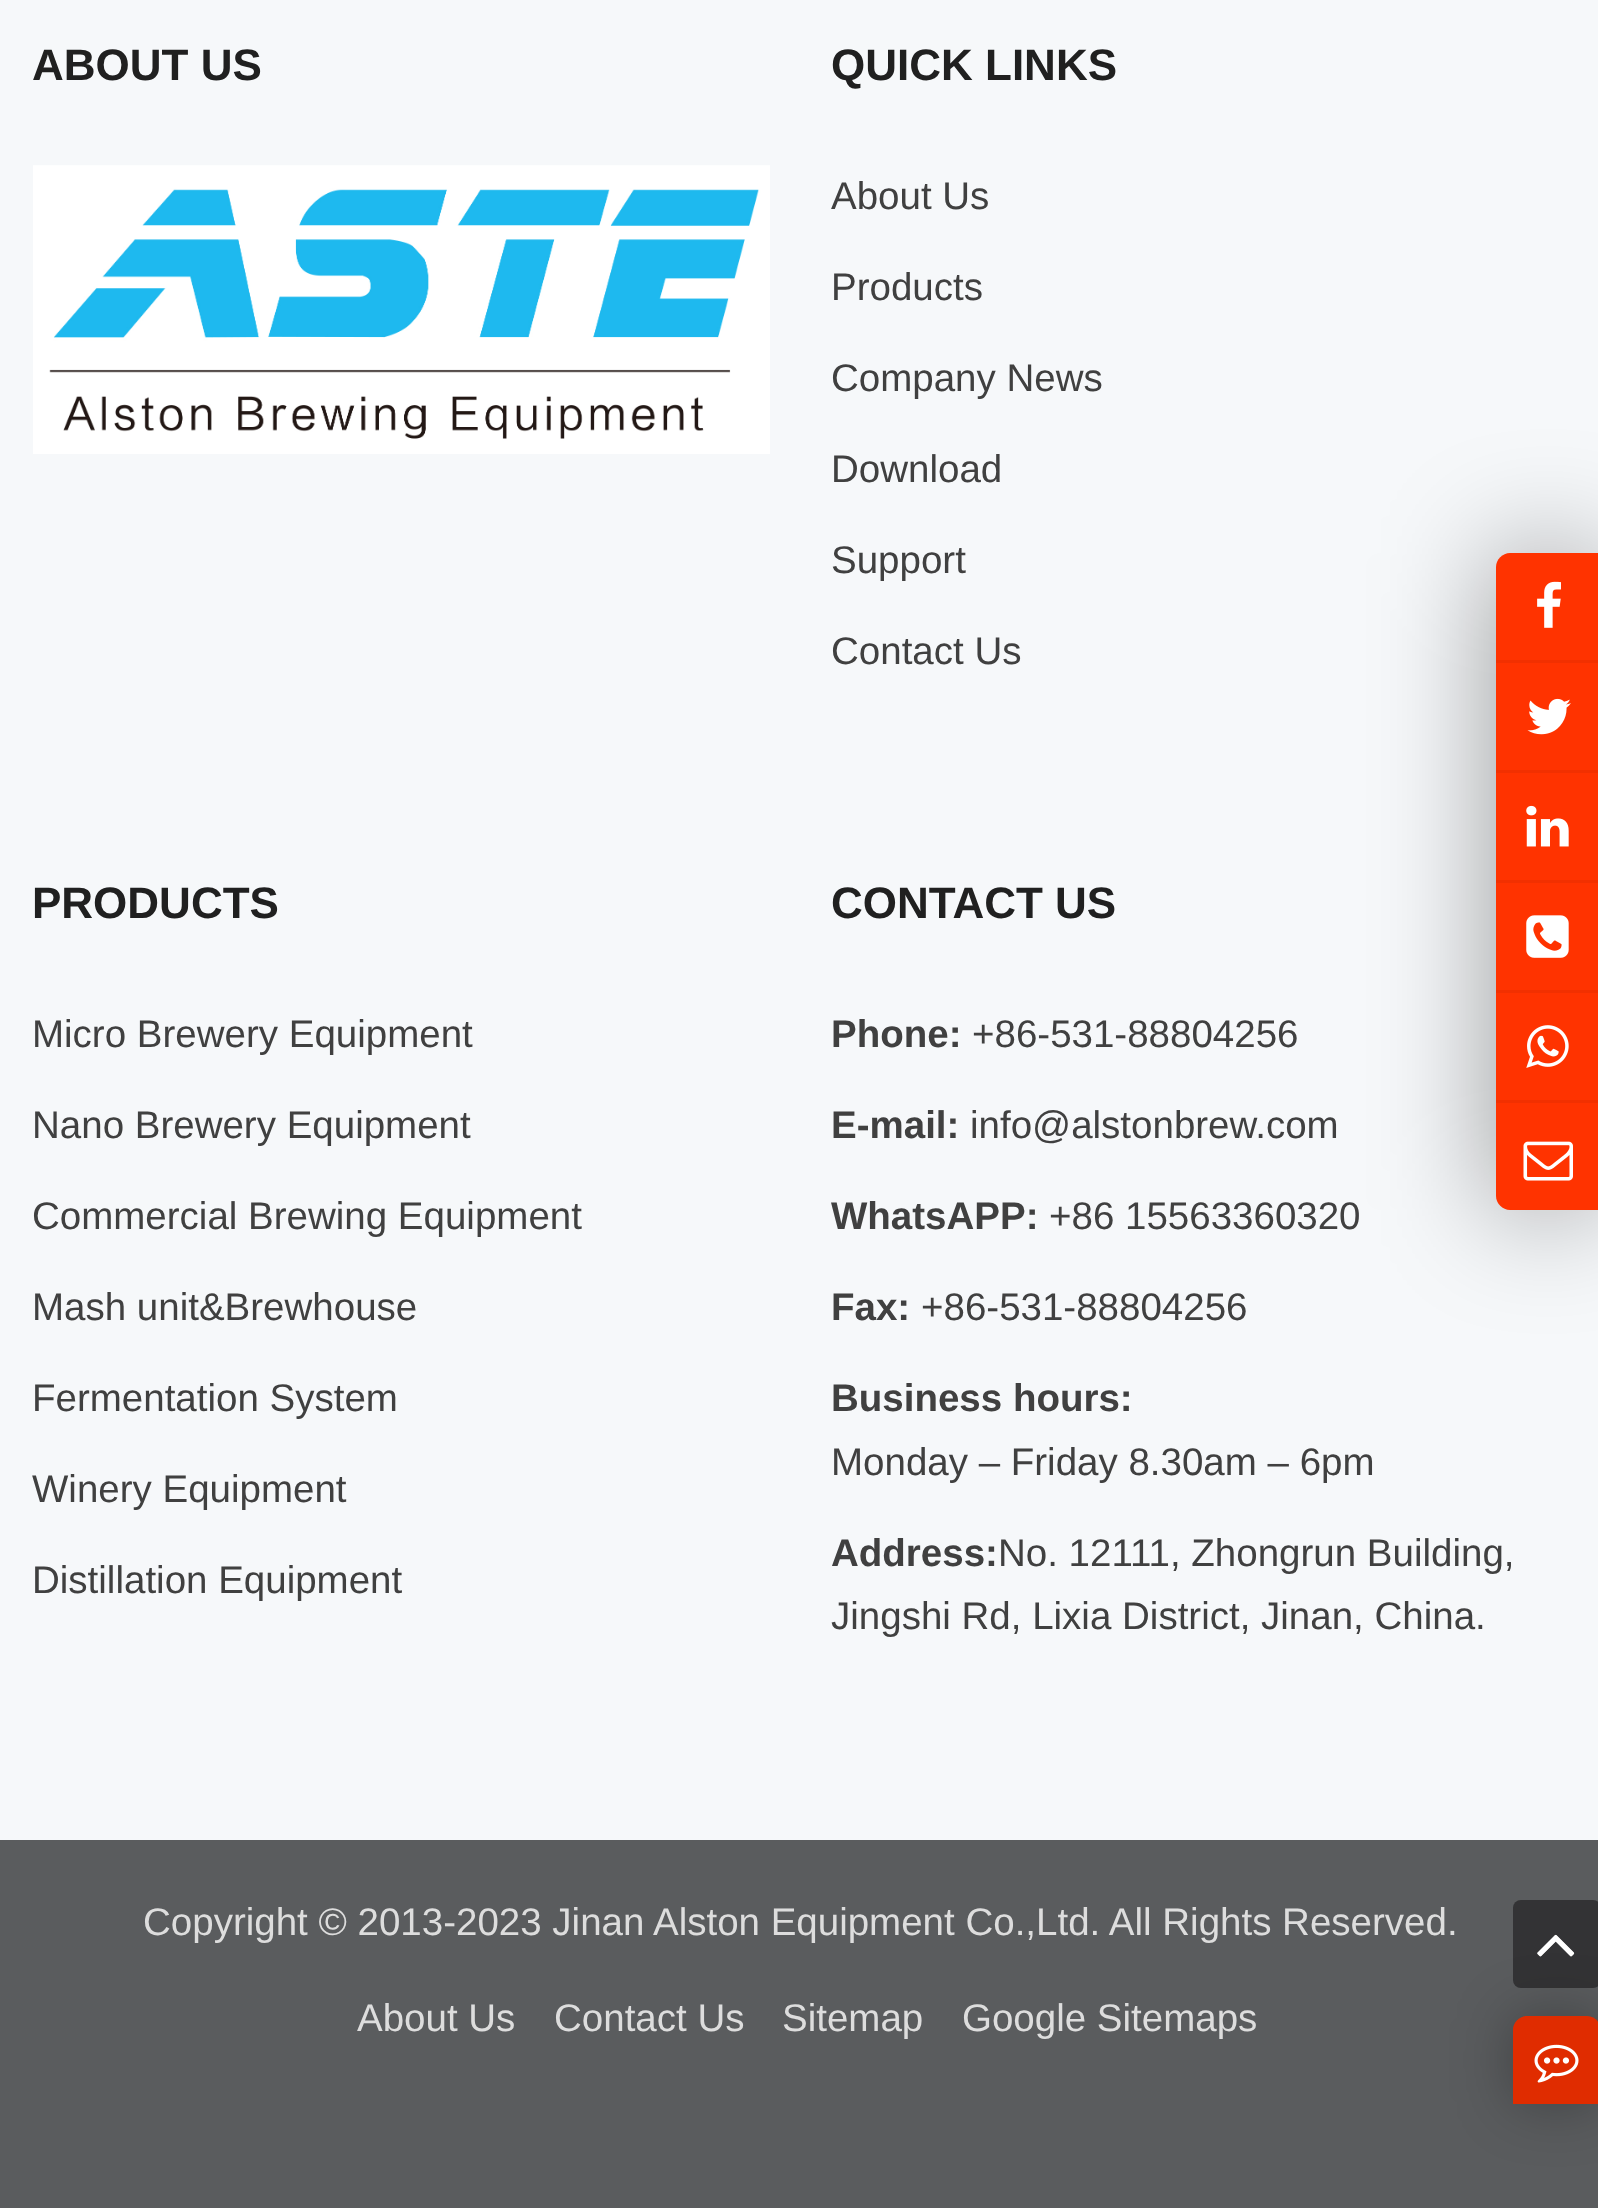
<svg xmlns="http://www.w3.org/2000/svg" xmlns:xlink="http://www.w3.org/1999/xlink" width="1598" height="2208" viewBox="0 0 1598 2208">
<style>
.cls-1{font:bold 44px Liberation Sans;fill:#202020}
.cls-2{font:38.5px Liberation Sans;fill:#404040}
.cls-3{font:bold 38.5px Liberation Sans;fill:#404040}
.cls-4{font:38.5px Liberation Sans;fill:#dddddd}
</style>
<rect width="100%" height="100%" fill="#f6f8fa"/>
<image xlink:href="image0.png" x="33" y="165" width="737" height="289"/>
<rect fill="#5a5c5e" x="0" y="1840" width="1598" height="368"/>
<rect fill="#000000" fill-opacity="0.4" filter="blur(58px)" x="1496" y="553" width="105" height="657" rx="14"/>
<path fill="#ff3300" d="M1510 553H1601V1210H1510C1502.5 1210 1496 1203.5 1496 1196V567C1496 559.5 1502.5 553 1510 553Z"/>
<rect fill="#f23000" x="1496" y="660" width="102" height="3"/>
<image xlink:href="image1.png" x="1537" y="581" width="24" height="47"/>
<rect fill="#f23000" x="1496" y="770" width="102" height="3"/>
<image xlink:href="image2.png" x="1527" y="698" width="44" height="37"/>
<rect fill="#f23000" x="1496" y="880" width="102" height="3"/>
<image xlink:href="image3.png" x="1526" y="805" width="43" height="42"/>
<rect fill="#f23000" x="1496" y="990" width="102" height="3"/>
<image xlink:href="image4.png" x="1526" y="915" width="43" height="43"/>
<rect fill="#f23000" x="1496" y="1100" width="102" height="3"/>
<image xlink:href="image5.png" x="1526" y="1025" width="43" height="43"/>
<image xlink:href="image6.png" x="1523" y="1141" width="50" height="40"/>
<rect fill="#444547" x="1513" y="1900" width="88" height="88" rx="8"/>
<image xlink:href="image7.png" x="1537" y="1934" width="38" height="23"/>
<rect fill="#000000" fill-opacity="0.25" x="1513" y="1900" width="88" height="88" rx="8"/>
<image xlink:href="image8.png" x="1537" y="1934" width="38" height="23"/>
<rect fill="#000000" fill-opacity="0.3" filter="blur(29px)" x="1513" y="2016" width="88" height="88" rx="14"/>
<path fill="#ff3300" d="M1527 2016H1587C1594.5 2016 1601 2022.5 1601 2030V2104H1513V2030C1513 2022.5 1519.5 2016 1527 2016Z"/>
<path fill="#000000" fill-opacity="0.12" d="M1527 2016H1587C1594.5 2016 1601 2022.5 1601 2030V2104H1513V2030C1513 2022.5 1519.5 2016 1527 2016Z"/>
<image xlink:href="image9.png" x="1534" y="2044" width="45" height="39"/>
<text class="cls-1" x="32" y="80">ABOUT US</text>
<text class="cls-1" x="831" y="80">QUICK LINKS</text>
<text class="cls-2" x="831" y="209">About Us</text>
<text class="cls-2" x="831" y="300">Products</text>
<text class="cls-2" x="831" y="391">Company News</text>
<text class="cls-2" x="831" y="482">Download</text>
<text class="cls-2" x="831" y="573">Support</text>
<text class="cls-2" x="831" y="664">Contact Us</text>
<text class="cls-1" x="32" y="918">PRODUCTS</text>
<text class="cls-2" x="32" y="1047">Micro Brewery Equipment</text>
<text class="cls-2" x="32" y="1138">Nano Brewery Equipment</text>
<text class="cls-2" x="32" y="1229">Commercial Brewing Equipment</text>
<text class="cls-2" x="32" y="1320">Mash unit&amp;Brewhouse</text>
<text class="cls-2" x="32" y="1411">Fermentation System</text>
<text class="cls-2" x="32" y="1502">Winery Equipment</text>
<text class="cls-2" x="32" y="1593">Distillation Equipment</text>
<text class="cls-1" x="831" y="918">CONTACT US</text>
<text class="cls-3" x="831" y="1047">Phone:</text>
<text class="cls-2" x="972" y="1047">+86-531-88804256</text>
<text class="cls-3" x="831" y="1138">E-mail:</text>
<text class="cls-2" x="970" y="1138">info@alstonbrew.com</text>
<text class="cls-3" x="831" y="1229">WhatsAPP:</text>
<text class="cls-2" x="1049" y="1229">+86 15563360320</text>
<text class="cls-3" x="831" y="1320">Fax:</text>
<text class="cls-2" x="921" y="1320">+86-531-88804256</text>
<text class="cls-3" x="831" y="1411">Business hours:</text>
<text class="cls-2" x="831" y="1475">Monday – Friday 8.30am – 6pm</text>
<text class="cls-3" x="831" y="1566">Address:</text>
<text class="cls-2" x="998" y="1566">No. 12111, Zhongrun Building,</text>
<text class="cls-2" x="831" y="1629">Jingshi Rd, Lixia District, Jinan, China.</text>
<text class="cls-4" x="143" y="1935">Copyright © 2013-2023 Jinan Alston Equipment Co.,Ltd. All Rights Reserved.</text>
<text class="cls-4" x="357" y="2031">About Us</text>
<text class="cls-4" x="554" y="2031">Contact Us</text>
<text class="cls-4" x="782" y="2031">Sitemap</text>
<text class="cls-4" x="962" y="2031">Google Sitemaps</text>
</svg>
